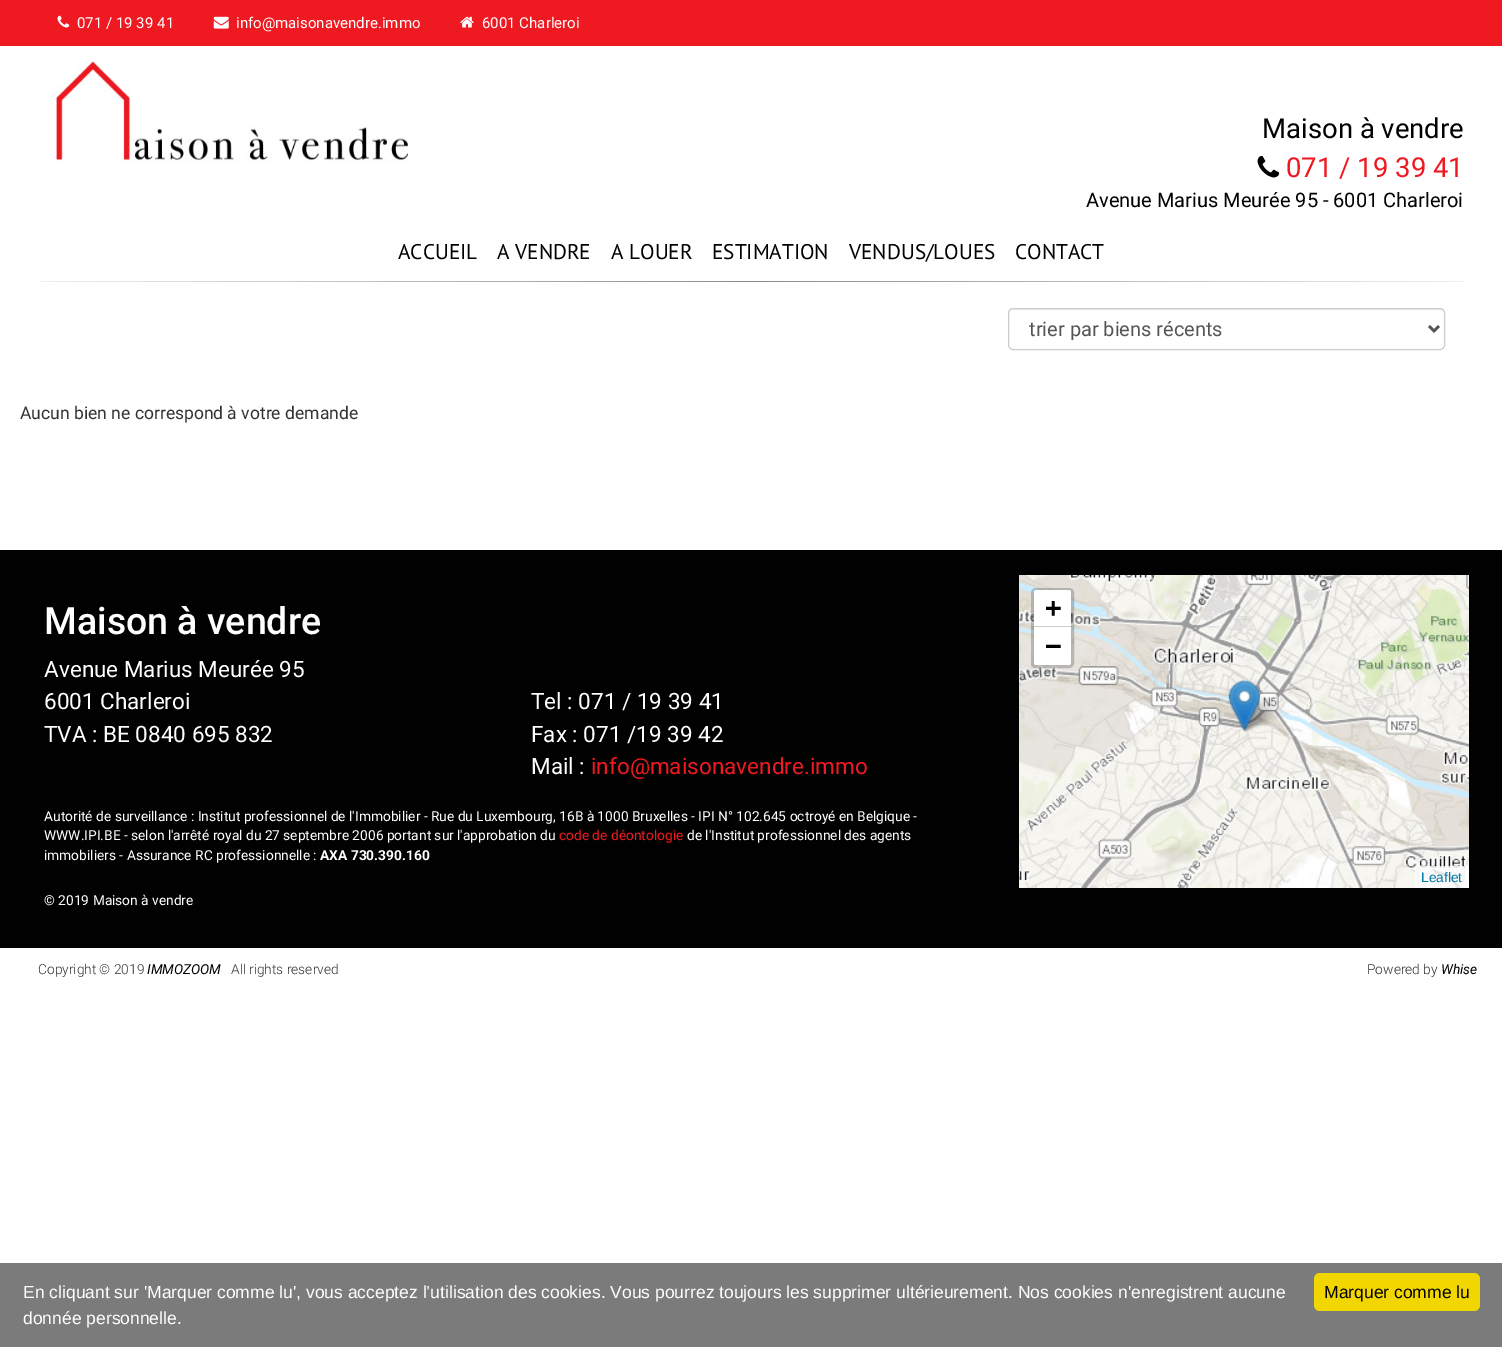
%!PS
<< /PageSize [1502 1347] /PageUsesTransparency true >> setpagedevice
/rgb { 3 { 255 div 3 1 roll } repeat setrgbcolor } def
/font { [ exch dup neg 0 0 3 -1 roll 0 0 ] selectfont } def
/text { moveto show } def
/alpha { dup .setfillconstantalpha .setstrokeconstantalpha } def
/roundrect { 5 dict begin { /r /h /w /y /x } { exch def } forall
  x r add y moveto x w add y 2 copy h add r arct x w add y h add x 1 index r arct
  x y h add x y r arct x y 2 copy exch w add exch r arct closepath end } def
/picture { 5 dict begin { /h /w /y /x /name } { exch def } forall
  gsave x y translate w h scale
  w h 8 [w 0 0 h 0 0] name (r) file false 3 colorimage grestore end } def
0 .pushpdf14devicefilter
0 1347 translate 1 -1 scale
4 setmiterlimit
255 255 255 rgb
0 0 1502 1347 rectfill
239 25 33 rgb
0 0 1502 46 rectfill
(img_01.rgb) 57 15 13 13 picture
(img_02.rgb) 213 16 16 13 picture
(img_03.rgb) 460 16 14 12 picture
(img_04.rgb) 52 60 356 103 picture
(img_05.rgb) 1257 155 23 23 picture
gsave 39 281 moveto 1425 0 rlineto 0 1 rlineto -1425 0 rlineto closepath clip newpath
<< /ShadingType 2 /ColorSpace /DeviceRGB /Coords [39 282 1464 282] /Extend [true true] /Function << /FunctionType 3 /Domain [0 1] /Functions [<< /FunctionType 2 /Domain [0 1] /C0 [0.941 0.941 0.941] /C1 [0.549 0.545 0.545] /N 1 >> << /FunctionType 2 /Domain [0 1] /C0 [0.549 0.545 0.545] /C1 [0.941 0.941 0.941] /N 1 >>] /Bounds [0.5] /Encode [0 1 0 1] >> >> shfill grestore
236 236 236 rgb
1012 310 moveto 428 0 rlineto 2 0 4 2 4 4 rcurveto 0 -3 -1 -5 -4 -5 rcurveto -427 0 rlineto -2 1 rlineto -1 1 rlineto -1 3 rlineto 0 -2 1 -4 3 -4 rcurveto closepath fill
204 204 204 rgb
1008.5 308.5 436 41 4.5 roundrect stroke
85 85 85 rgb
2.5 setlinewidth
1429 326 moveto 5 5 rlineto 5 -5 rlineto stroke
1 1 1 rgb
0 550 1502 398 rectfill
(img_06.rgb) 1019 575 181 170 picture
(img_07.rgb) 1200 575 269 170 picture
(img_08.rgb) 1019 744 181 144 picture
(img_09.rgb) 1200 744 269 144 picture
(img_11.rgb) 1240 696 37 36 picture
(img_10.rgb) 1228 679 32 53 picture
0.2 alpha
0 0 0 rgb
3 setlinewidth
1032.5 589.5 40 77 3.5 roundrect stroke
1 alpha
255 255 255 rgb
1036.5 590 moveto 32 0 rlineto 1.5 0 2.5 1 2.5 2.5 rcurveto 0 35.5 rlineto -37 0 rlineto 0 -35.5 rlineto 0 -1.5 1 -2.5 2.5 -2.5 rcurveto closepath fill
204 204 204 rgb
1034 626 37 1 rectfill
255 255 255 rgb
1034 628 moveto 37 0 rlineto 0 34.5 rlineto 0 1.5 -1 2.5 -2.5 2.5 rcurveto -32 0 rlineto -1.5 0 -2.5 -1 -2.5 -2.5 rcurveto closepath fill
0.7 alpha
1415 866 54 22 rectfill
1 alpha
123 123 123 rgb
0 1263 1502 84 rectfill
241 214 0 rgb
1314 1273 166 38 6 roundrect fill
/Roboto-Regular 15 font
255 255 255 rgb
(071 / 19 39 41) 77 28 text
(info@maisonavendre.immo) 236 28 text
(6001 Charleroi) 482 28 text
/Roboto-Regular 27.5 font
1 1 1 rgb
(Maison à vendre) 1262 138 text
239 25 33 rgb
(071 / 19 39 41) 1286 177 text
/Roboto-Regular 20 font
1 1 1 rgb
(Avenue Marius Meurée 95 - 6001 Charleroi) 1086 207 text
/PTSans-Regular 21.25 font
(ACCUEIL) 398 259 text
(A VENDRE) 497 259 text
(A LOUER) 611 259 text
(ESTIMATION) 712 259 text
(VENDUS/LOUES) 849 259 text
(CONTACT) 1015 259 text
/Roboto-Regular 20 font
85 85 85 rgb
(trier par biens récents) 1029 336 text
/Roboto-Regular 17.5 font
51 51 51 rgb
(Aucun bien ne correspond à votre demande) 20 419 text
/Roboto-Medium 37.5 font
255 255 255 rgb
(Maison à vendre) 44 634 text
/Roboto-Regular 22.5 font
(Avenue Marius Meurée 95) 44 677 text
(6001 Charleroi) 44 709 text
(TVA : BE 0840 695 832) 44 742 text
(Tel : 071 / 19 39 41) 531 709 text
(Fax : 071 /19 39 42) 531 742 text
(Mail :) 531 774 text
239 25 33 rgb
(info@maisonavendre.immo) 591 774 text
/Roboto-Regular 13.75 font
255 255 255 rgb
(Autorité de surveillance : Institut professionnel de l'Immobilier - Rue du Luxembourg, 16B à 1000 Bruxelles - IPI N° 102.645 octroyé en Belgique -) 44 821 text
(WWW.IPI.BE - selon l'arrêté royal du 27 septembre 2006 portant sur l'approbation du) 44 840 text
239 25 33 rgb
(code de déontologie) 559 840 text
255 255 255 rgb
(de l'Institut professionnel des agents) 687 840 text
(immobiliers - Assurance RC professionnelle :) 44 860 text
/Roboto-Bold 13.75 font
(AXA 730.390.160) 320 860 text
/Roboto-Regular 13.75 font
(© 2019 Maison à vendre) 44 905 text
/DejaVuSansMono-Bold 27.5 font
1 1 1 rgb
(+) 1045 617 text
(−) 1045 655 text
/LiberationSans-Regular 13.75 font
0 120 168 rgb
(Leaflet) 1421 882 text
/Roboto-Light 13.75 font
51 51 51 rgb
(Copyright © 2019) 38 974 text
/Roboto-Italic 13.75 font
1 1 1 rgb
(IMMOZOOM) 147 974 text
/Roboto-Light 13.75 font
51 51 51 rgb
(All rights reserved) 231 974 text
(Powered by) 1367 974 text
/Roboto-Italic 13.75 font
1 1 1 rgb
(Whise) 1441 974 text
/LiberationSans-Regular 17.5 font
255 255 255 rgb
(En cliquant sur 'Marquer comme lu', vous acceptez l’utilisation des cookies. Vous pourrez toujours les supprimer ultérieurement. Nos cookies n'enregistrent aucune) 23 1298 text
(donnée personnelle.) 23 1324 text
1 1 1 rgb
(Marquer comme lu) 1324 1298 text
.poppdf14devicefilter showpage
